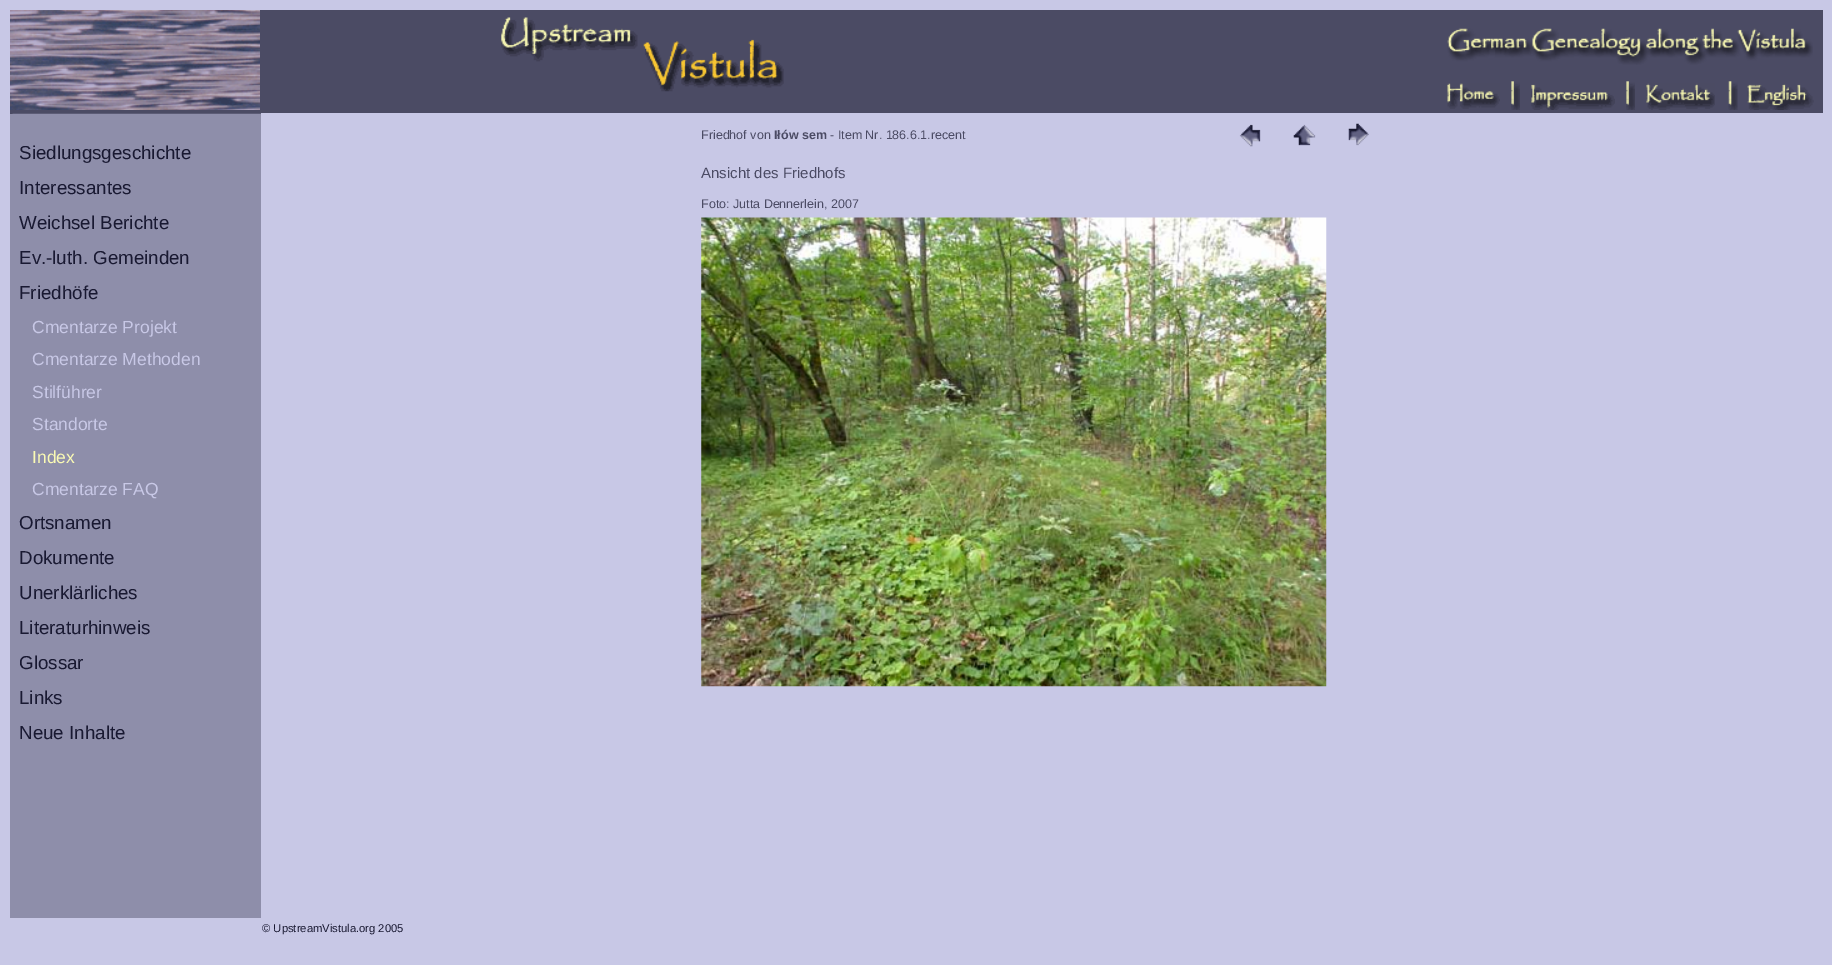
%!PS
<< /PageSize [1832 965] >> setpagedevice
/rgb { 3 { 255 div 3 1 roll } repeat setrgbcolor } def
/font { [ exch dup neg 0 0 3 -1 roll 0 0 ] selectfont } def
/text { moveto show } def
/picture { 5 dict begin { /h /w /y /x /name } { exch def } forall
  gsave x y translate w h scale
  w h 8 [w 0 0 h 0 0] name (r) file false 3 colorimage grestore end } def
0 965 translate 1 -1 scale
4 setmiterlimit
200 200 230 rgb
0 0 1832 965 rectfill
75 75 100 rgb
10 10 1813 104 rectfill
(img_01.rgb) 10 10 250 100 picture
(img_02.rgb) 501 17 283 75 picture
(img_03.rgb) 1447 28 366 37 picture
(img_04.rgb) 1447 83 53 26 picture
(img_05.rgb) 1511 81 9 29 picture
(img_06.rgb) 1531 84 84 26 picture
(img_07.rgb) 1626 81 9 29 picture
(img_08.rgb) 1646 83 69 27 picture
(img_09.rgb) 1728 81 10 29 picture
(img_10.rgb) 1747 84 67 26 picture
142 142 170 rgb
10 114 251 804 rectfill
(img_11.rgb) 12 113 249 1 picture
200 200 230 rgb
261 113 1562 1 rectfill
(img_12.rgb) 1239 124 22 23 picture
(img_13.rgb) 1293 124 23 22 picture
(img_14.rgb) 1348 123 21 23 picture
(img_15.rgb) 701 217 626 470 picture
/LiberationSans-Regular 18.75 font
25 25 50 rgb
(Siedlungsgeschichte) 19 159 text
(Interessantes) 19 194 text
(Weichsel Berichte) 19 229 text
(Ev.-luth. Gemeinden) 19 264 text
(Friedhöfe) 19 299 text
/LiberationSans-Regular 17.5 font
200 200 230 rgb
(Cmentarze Projekt) 32 333 text
(Cmentarze Methoden) 32 365 text
(Stilführer) 32 398 text
(Standorte) 32 430 text
250 250 180 rgb
(Index) 32 463 text
200 200 230 rgb
(Cmentarze FAQ) 32 495 text
/LiberationSans-Regular 18.75 font
25 25 50 rgb
(Ortsnamen) 19 529 text
(Dokumente) 19 564 text
(Unerklärliches) 19 599 text
(Literaturhinweis) 19 634 text
(Glossar) 19 669 text
(Links) 19 704 text
(Neue Inhalte) 19 739 text
/LiberationSans-Regular 12.5 font
75 75 100 rgb
(Friedhof von) 701 139 text
/LiberationSans-Bold 12.5 font
(Iłów sem) 774 139 text
/LiberationSans-Regular 12.5 font
(- Item Nr. 186.6.1.recent) 830 139 text
/LiberationSans-Regular 15 font
(Ansicht des Friedhofs) 701 178 text
/LiberationSans-Regular 12.5 font
(Foto: Jutta Dennerlein, 2007) 701 208 text
/LiberationSans-Regular 11.25 font
25 25 50 rgb
(© UpstreamVistula.org 2005) 262 932 text
showpage
